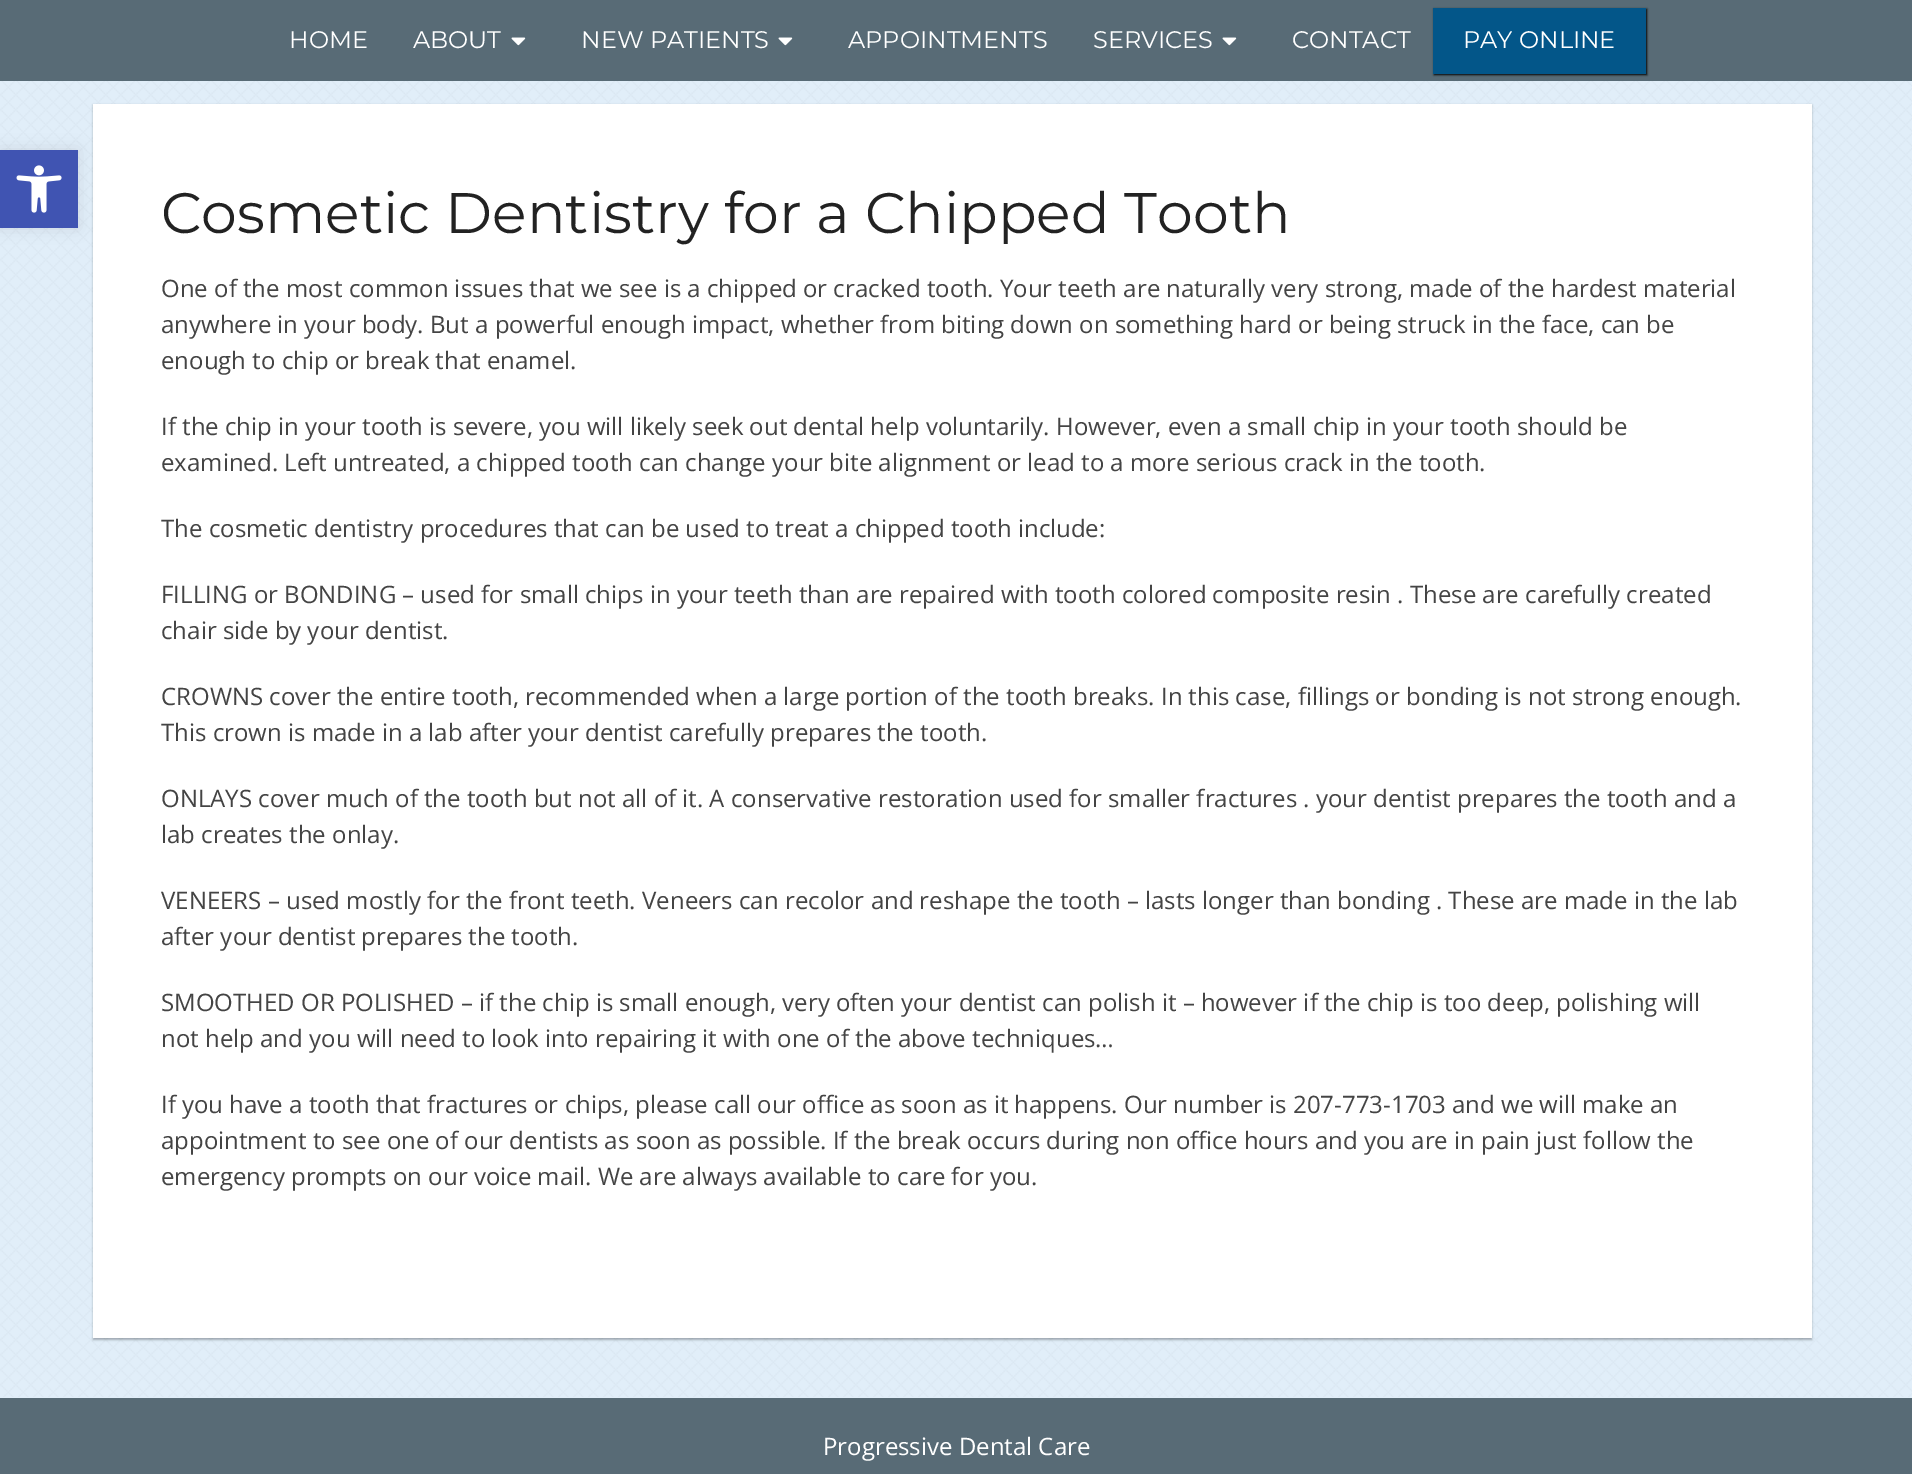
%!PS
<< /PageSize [1912 1474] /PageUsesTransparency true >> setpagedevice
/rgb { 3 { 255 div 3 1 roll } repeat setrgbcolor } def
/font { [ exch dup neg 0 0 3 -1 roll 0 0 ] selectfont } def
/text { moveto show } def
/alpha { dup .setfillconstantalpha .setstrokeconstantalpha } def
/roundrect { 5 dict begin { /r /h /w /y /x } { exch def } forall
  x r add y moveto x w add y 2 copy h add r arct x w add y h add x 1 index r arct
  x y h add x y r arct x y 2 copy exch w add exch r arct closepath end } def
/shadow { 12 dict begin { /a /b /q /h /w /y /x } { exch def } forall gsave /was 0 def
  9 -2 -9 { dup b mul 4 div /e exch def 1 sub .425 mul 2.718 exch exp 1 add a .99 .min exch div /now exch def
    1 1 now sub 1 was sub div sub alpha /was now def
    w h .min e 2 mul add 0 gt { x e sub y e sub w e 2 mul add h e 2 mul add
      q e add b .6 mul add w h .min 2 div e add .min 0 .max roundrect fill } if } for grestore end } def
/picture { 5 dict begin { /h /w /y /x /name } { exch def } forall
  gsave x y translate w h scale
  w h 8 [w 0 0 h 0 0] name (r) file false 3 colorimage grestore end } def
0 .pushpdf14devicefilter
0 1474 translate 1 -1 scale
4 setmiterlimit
225 238 249 rgb
0 0 1912 1474 rectfill
(img_01.rgb) 0 81 1912 1316 picture
0 0 0 rgb
93 105 1719 1235 0 1 0.28 shadow
255 255 255 rgb
93 104 1719 1234 rectfill
0 0 0 rgb
0 150 78 78 0 7.5 0.1 shadow
64 84 178 rgb
0 150 78 78 rectfill
(img_02.rgb) 16 165 46 48 picture
88 107 118 rgb
0 0 1912 81 rectfill
(img_03.rgb) 511 37 15 9 picture
(img_03.rgb) 778 37 15 9 picture
(img_03.rgb) 1222 37 15 9 picture
0 0 0 rgb
1434 9 213 66 0 1 1 shadow
3 86 137 rgb
1433 8 213 66 rectfill
88 107 118 rgb
0 1398 1912 76 rectfill
/Montserrat-Regular 24 font
255 255 255 rgb
(HOME) 289 48 text
(ABOUT) 413 48 text
(NEW PATIENTS) 581 48 text
(APPOINTMENTS) 848 48 text
(SERVICES) 1093 48 text
(CONTACT) 1292 48 text
(PAY ONLINE) 1463 48 text
/Montserrat-Regular 57 font
34 34 34 rgb
(Cosmetic Dentistry for a Chipped Tooth) 161 233 text
/OpenSans-Regular 24 font
68 68 68 rgb
(One of the most common issues that we see is a chipped or cracked tooth. Your teeth are naturally very strong, made of the hardest material) 161 297 text
(anywhere in your body. But a powerful enough impact, whether from biting down on something hard or being struck in the face, can be) 161 333 text
(enough to chip or break that enamel.) 161 369 text
(If the chip in your tooth is severe, you will likely seek out dental help voluntarily. However, even a small chip in your tooth should be) 161 435 text
(examined. Left untreated, a chipped tooth can change your bite alignment or lead to a more serious crack in the tooth.) 161 471 text
(The cosmetic dentistry procedures that can be used to treat a chipped tooth include:) 161 537 text
(FILLING or BONDING – used for small chips in your teeth than are repaired with tooth colored composite resin . These are carefully created) 161 603 text
(chair side by your dentist.) 161 639 text
(CROWNS cover the entire tooth, recommended when a large portion of the tooth breaks. In this case, fillings or bonding is not strong enough.) 161 705 text
(This crown is made in a lab after your dentist carefully prepares the tooth.) 161 741 text
(ONLAYS cover much of the tooth but not all of it. A conservative restoration used for smaller fractures . your dentist prepares the tooth and a) 161 807 text
(lab creates the onlay.) 161 843 text
(VENEERS – used mostly for the front teeth. Veneers can recolor and reshape the tooth – lasts longer than bonding . These are made in the lab) 161 909 text
(after your dentist prepares the tooth.) 161 945 text
(SMOOTHED OR POLISHED – if the chip is small enough, very often your dentist can polish it – however if the chip is too deep, polishing will) 161 1011 text
(not help and you will need to look into repairing it with one of the above techniques…) 161 1047 text
(If you have a tooth that fractures or chips, please call our office as soon as it happens. Our number is 207-773-1703 and we will make an) 161 1113 text
(appointment to see one of our dentists as soon as possible. If the break occurs during non office hours and you are in pain just follow the) 161 1149 text
(emergency prompts on our voice mail. We are always available to care for you.) 161 1185 text
255 255 255 rgb
(Progressive Dental Care) 823 1455 text
.poppdf14devicefilter showpage
